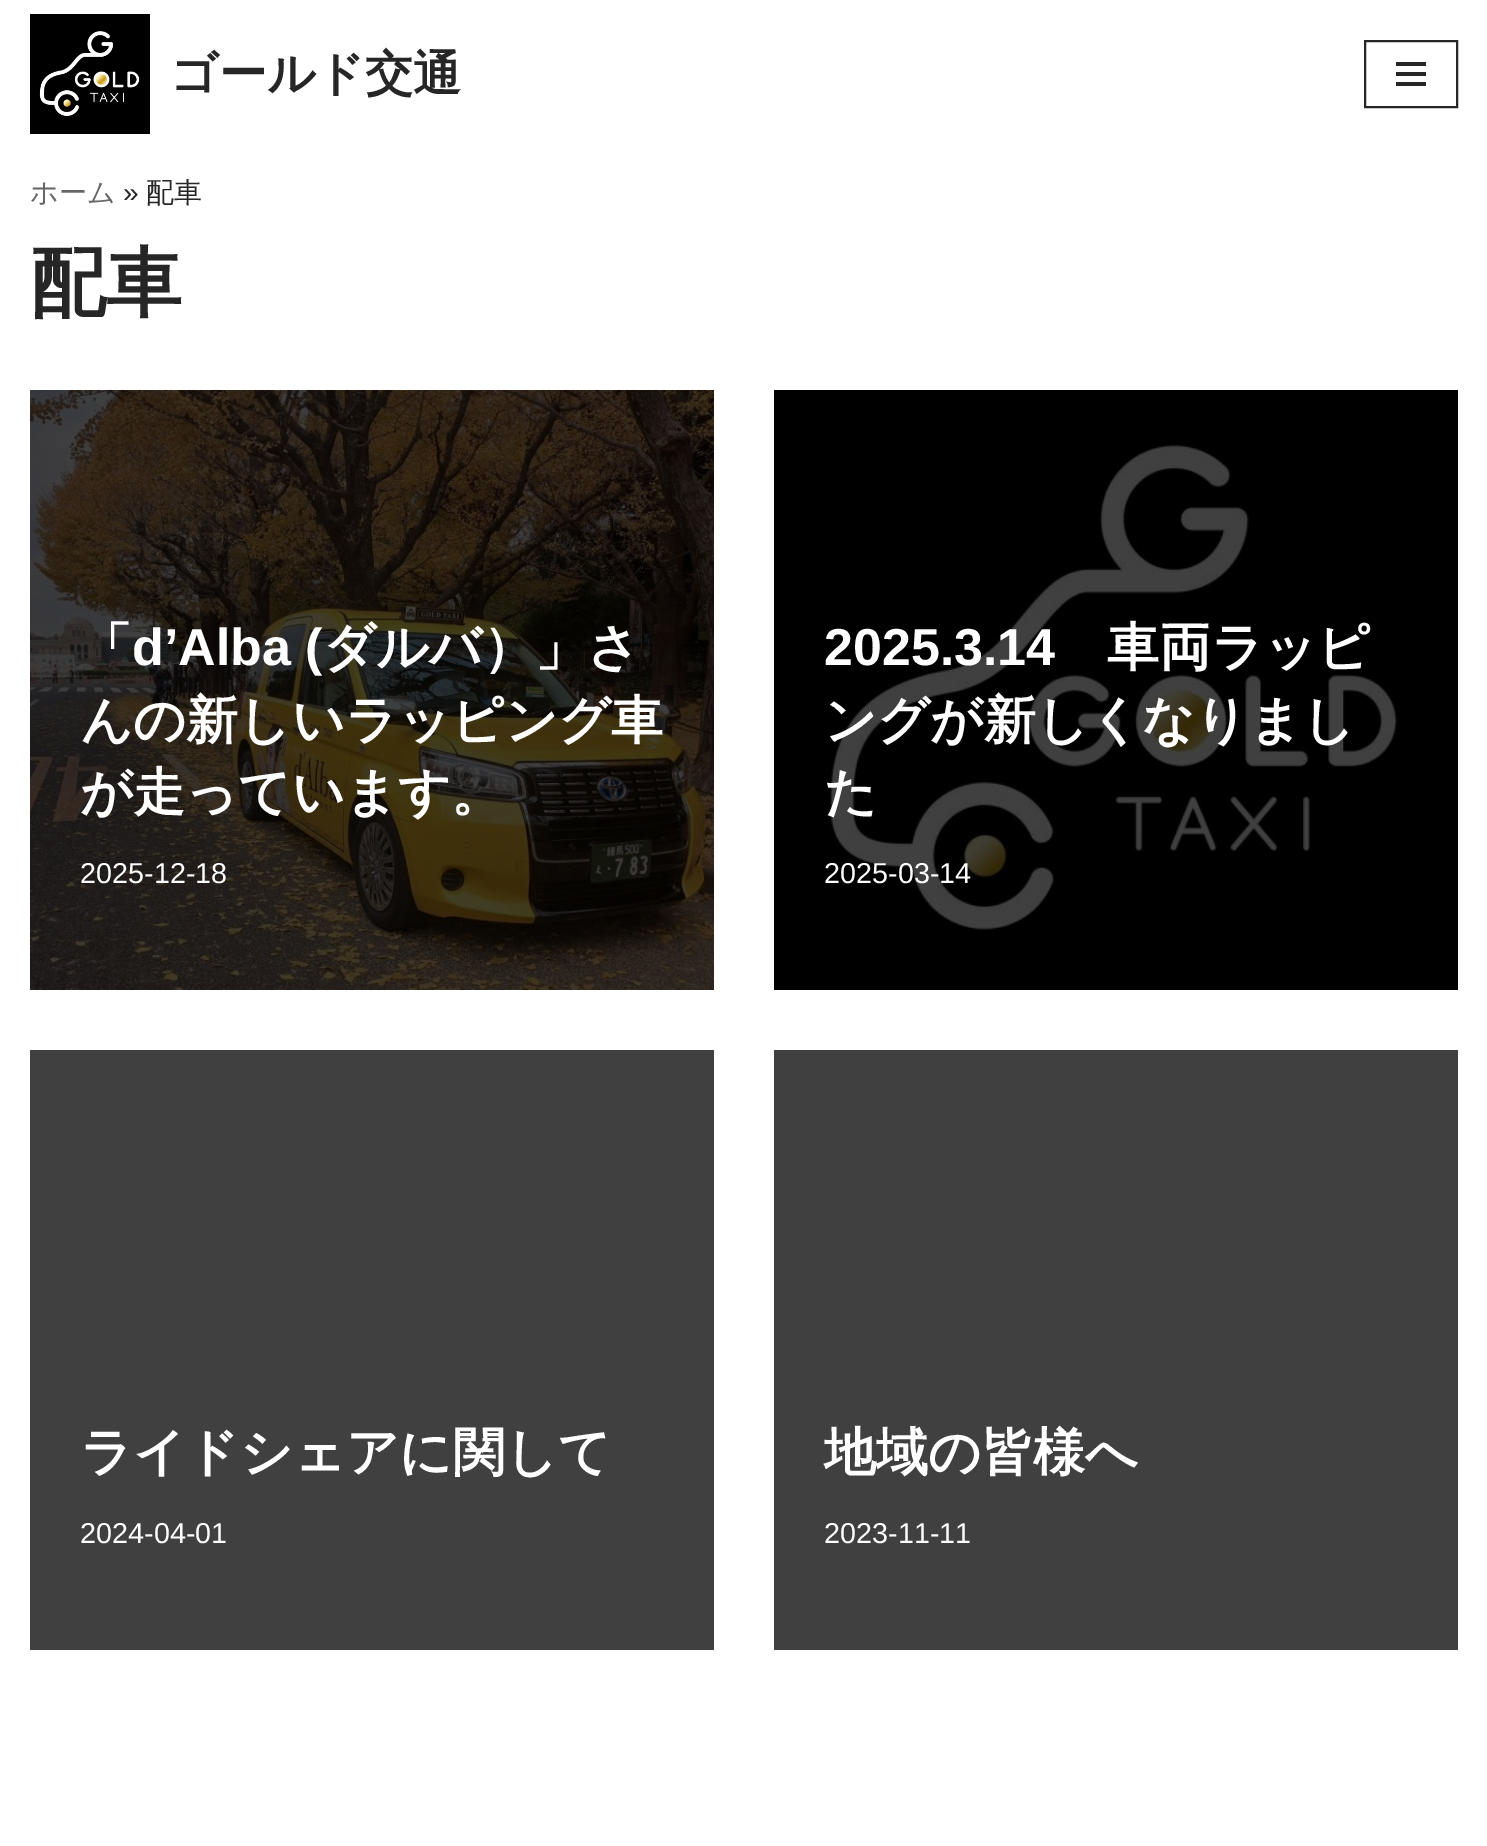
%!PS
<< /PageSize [1487 1846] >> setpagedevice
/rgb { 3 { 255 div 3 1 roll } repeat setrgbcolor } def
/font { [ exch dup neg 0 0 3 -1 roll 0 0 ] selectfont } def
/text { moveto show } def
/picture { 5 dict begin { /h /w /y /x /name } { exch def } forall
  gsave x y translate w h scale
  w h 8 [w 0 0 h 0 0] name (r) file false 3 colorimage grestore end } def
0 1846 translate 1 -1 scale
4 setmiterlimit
255 255 255 rgb
0 0 1487 1846 rectfill
(img_01.rgb) 30 14 120 120 picture
39 38 38 rgb
2 setlinewidth
1365 41 92 66 rectstroke
1396 62 30 4 rectfill
1396 72 30 4 rectfill
1396 82 30 4 rectfill
(img_02.rgb) 30 390 684 600 picture
(img_03.rgb) 774 390 684 600 picture
64 64 64 rgb
30 1050 684 600 rectfill
774 1050 684 600 rectfill
/WenQuanYiZenHei-Bold 48 font
39 38 38 rgb
(ゴールド交通) 170 90 text
/WenQuanYiZenHei-Medium 28 font
103 103 103 rgb
(ホーム) 30 202 text
/LiberationSans-Regular 28 font
39 38 38 rgb
(») 123 202 text
/WenQuanYiZenHei-Medium 28 font
(配車) 146 202 text
/WenQuanYiZenHei-Bold 76 font
(配車) 30 309 text
/WenQuanYiZenHei-Bold 52 font
255 255 255 rgb
(「) 80 665 text
/LiberationSans-Bold 52 font
(d’Alba \() 132 665 text
/WenQuanYiZenHei-Bold 52 font
(ダルバ）」さ) 323 665 text
(んの新しいラッピング車) 80 738 text
(が走っています。) 80 810 text
/LiberationSans-Regular 28.75 font
(2025-12-18) 80 883 text
/LiberationSans-Bold 52 font
(2025.3.14) 824 665 text
/WenQuanYiZenHei-Bold 52 font
(車両ラッピ) 1107 665 text
(ングが新しくなりまし) 824 738 text
(た) 824 810 text
/LiberationSans-Regular 28.75 font
(2025-03-14) 824 883 text
/WenQuanYiZenHei-Bold 52 font
(ライドシェアに関して) 80 1470 text
/LiberationSans-Regular 28.75 font
(2024-04-01) 80 1543 text
/WenQuanYiZenHei-Bold 52 font
(地域の皆様へ) 824 1470 text
/LiberationSans-Regular 28.75 font
(2023-11-11) 824 1543 text
showpage
